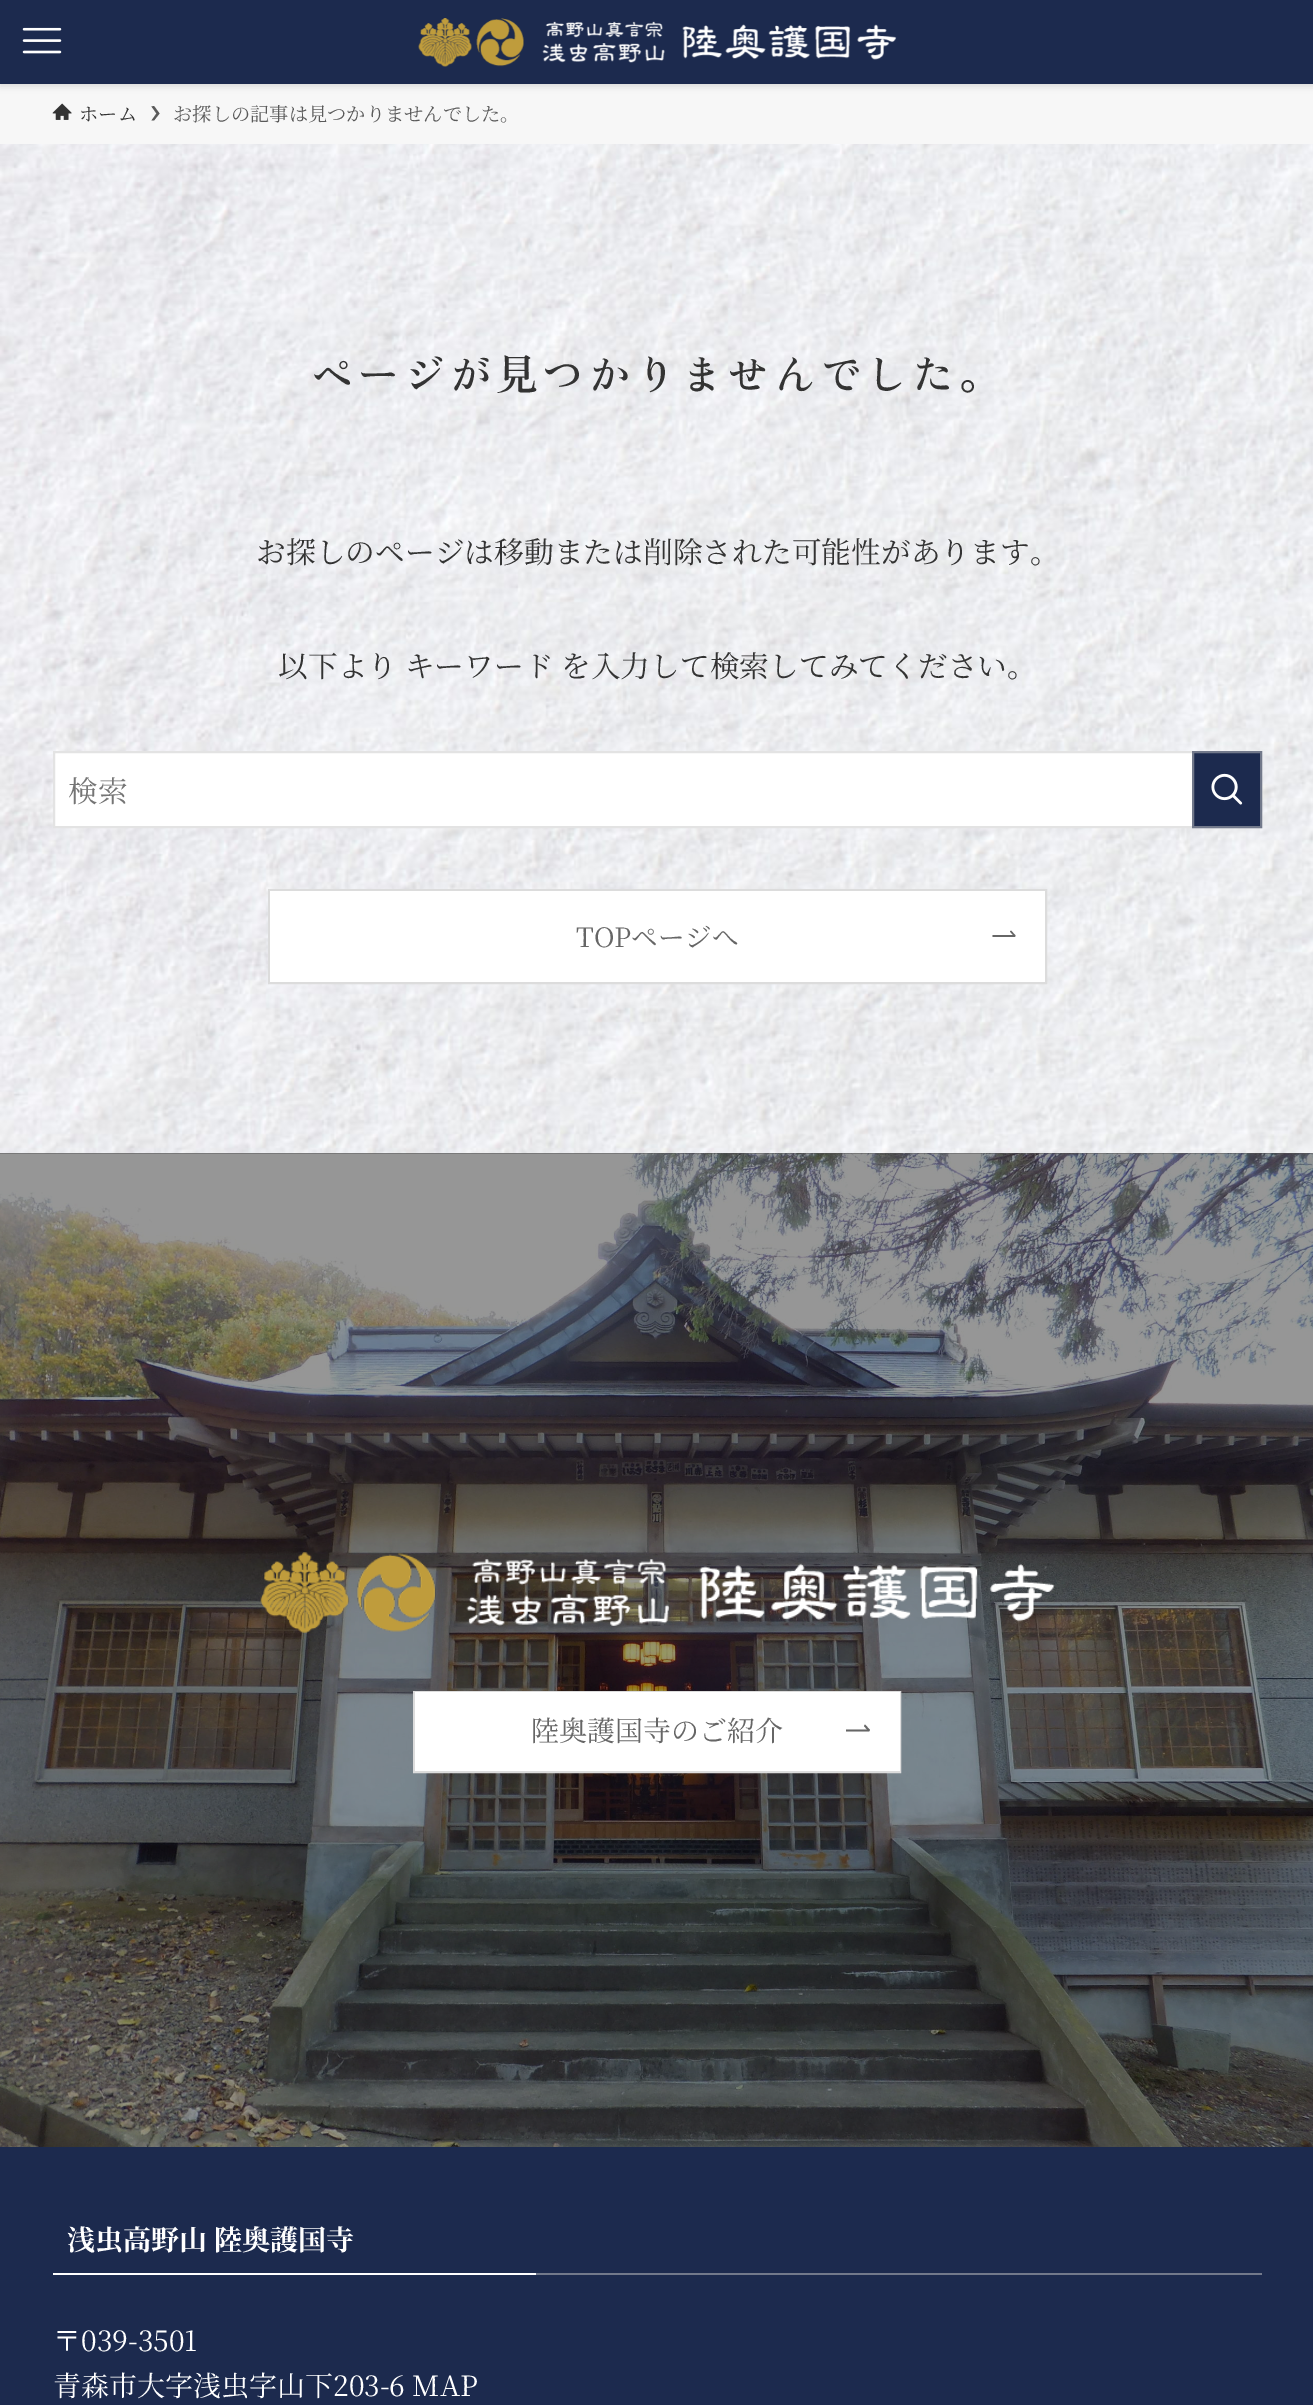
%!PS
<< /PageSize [1313 2405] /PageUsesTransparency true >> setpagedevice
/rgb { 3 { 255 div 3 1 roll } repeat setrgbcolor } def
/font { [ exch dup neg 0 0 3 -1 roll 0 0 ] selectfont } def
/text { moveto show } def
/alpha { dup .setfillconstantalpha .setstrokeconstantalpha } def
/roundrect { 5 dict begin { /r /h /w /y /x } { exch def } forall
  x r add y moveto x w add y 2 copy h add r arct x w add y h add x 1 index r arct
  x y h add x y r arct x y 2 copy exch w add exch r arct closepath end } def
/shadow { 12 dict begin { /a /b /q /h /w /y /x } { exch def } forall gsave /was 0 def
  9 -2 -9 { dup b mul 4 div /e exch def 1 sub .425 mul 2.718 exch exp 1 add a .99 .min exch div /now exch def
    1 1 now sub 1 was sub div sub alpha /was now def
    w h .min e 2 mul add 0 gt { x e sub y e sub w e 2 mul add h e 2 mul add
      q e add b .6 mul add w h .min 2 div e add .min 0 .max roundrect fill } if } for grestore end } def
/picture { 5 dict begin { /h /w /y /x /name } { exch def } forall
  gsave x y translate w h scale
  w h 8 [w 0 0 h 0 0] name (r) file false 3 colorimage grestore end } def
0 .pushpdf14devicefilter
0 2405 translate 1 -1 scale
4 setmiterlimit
255 255 255 rgb
0 0 1313 2405 rectfill
(img_01.rgb) 0 144 1313 1010 picture
247 247 247 rgb
0 84 1313 60 rectfill
0 0 0 rgb
0 2 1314 84 0 3.5 0.12 shadow
28 42 78 rgb
0 0 1313 84 rectfill
(img_02.rgb) 22 27 40 27 picture
(img_03.rgb) 418 18 479 49 picture
(img_04.rgb) 52 103 20 17 picture
90 90 90 rgb
154 106 moveto -2.5 0.5 rlineto 5 7 rlineto -5 7 rlineto 2.5 0 rlineto 5.5 -7 rlineto closepath fill
255 255 255 rgb
55 753 1137 73 rectfill
227 227 227 rgb
2 setlinewidth
54 752 1207 75 rectstroke
28 42 78 rgb
1193 752 moveto 68 0 rlineto 0 75 rlineto -68 0 rlineto closepath gsave fill grestore
114 121 139 rgb
stroke
(img_05.rgb) 1211 773 32 32 picture
220 220 220 rgb
269 890 777 93 rectstroke
255 255 255 rgb
270 891 775 91 rectfill
102 102 102 rgb
1015 937 moveto -22.5 0 rlineto 0 -2 rlineto 20.5 0 rlineto -3 -3.5 rlineto 1 -1 rlineto 4.5 5 rlineto closepath fill
0.42 alpha
5 5 5 rgb
0 1153 1313 1 rectfill
1 alpha
(img_06.rgb) 0 1153 1313 994 picture
0.42 alpha
0 1153 1313 994 rectfill
1 alpha
(img_07.rgb) 260 1552 795 81 picture
220 220 220 rgb
414 1692 486 80 rectstroke
255 255 255 rgb
415 1692 485 79 rectfill
102 102 102 rgb
869 1731.5 moveto -23 0 rlineto 0 -2 rlineto 21 0 rlineto -3 -3.5 rlineto 1 -1.5 rlineto 5 5.5 rlineto closepath fill
28 42 78 rgb
0 2147 1313 258 rectfill
255 255 255 rgb
53 2273 483 2 rectfill
114 121 139 rgb
536 2273 726 2 rectfill
/NotoSerifJP-Regular 19.25 font
51 51 51 rgb
(ホーム) 79 121 text
90 90 90 rgb
(お探しの記事は見つかりませんでした。) 173 121 text
/ZenOldMincho-SemiBold 42 font
51 51 51 rgb
311 390 moveto 4.25 0 (ページが見つかりませんでした。) ashow
/NotoSerifJP-Regular 29.75 font
(お探しのページは移動または削除された可能性があります。) 256 563 text
(以下より キーワード を入力して検索してみてください。) 278 677 text
117 117 117 rgb
(検索) 68 802 text
/NotoSerifJP-Regular 26.75 font
102 102 102 rgb
(TOPページへ) 576 947 text
/NotoSerifJP-Regular 28 font
(陸奥護国寺のご紹介) 531 1741 text
/NotoSerifJP-Bold 28 font
255 255 255 rgb
(浅虫高野山 陸奥護国寺) 67 2250 text
/NotoSerifJP-Regular 28 font
(〒039-3501) 53 2351 text
(青森市大字浅虫字山下203-6 MAP) 53 2396 text
.poppdf14devicefilter showpage
